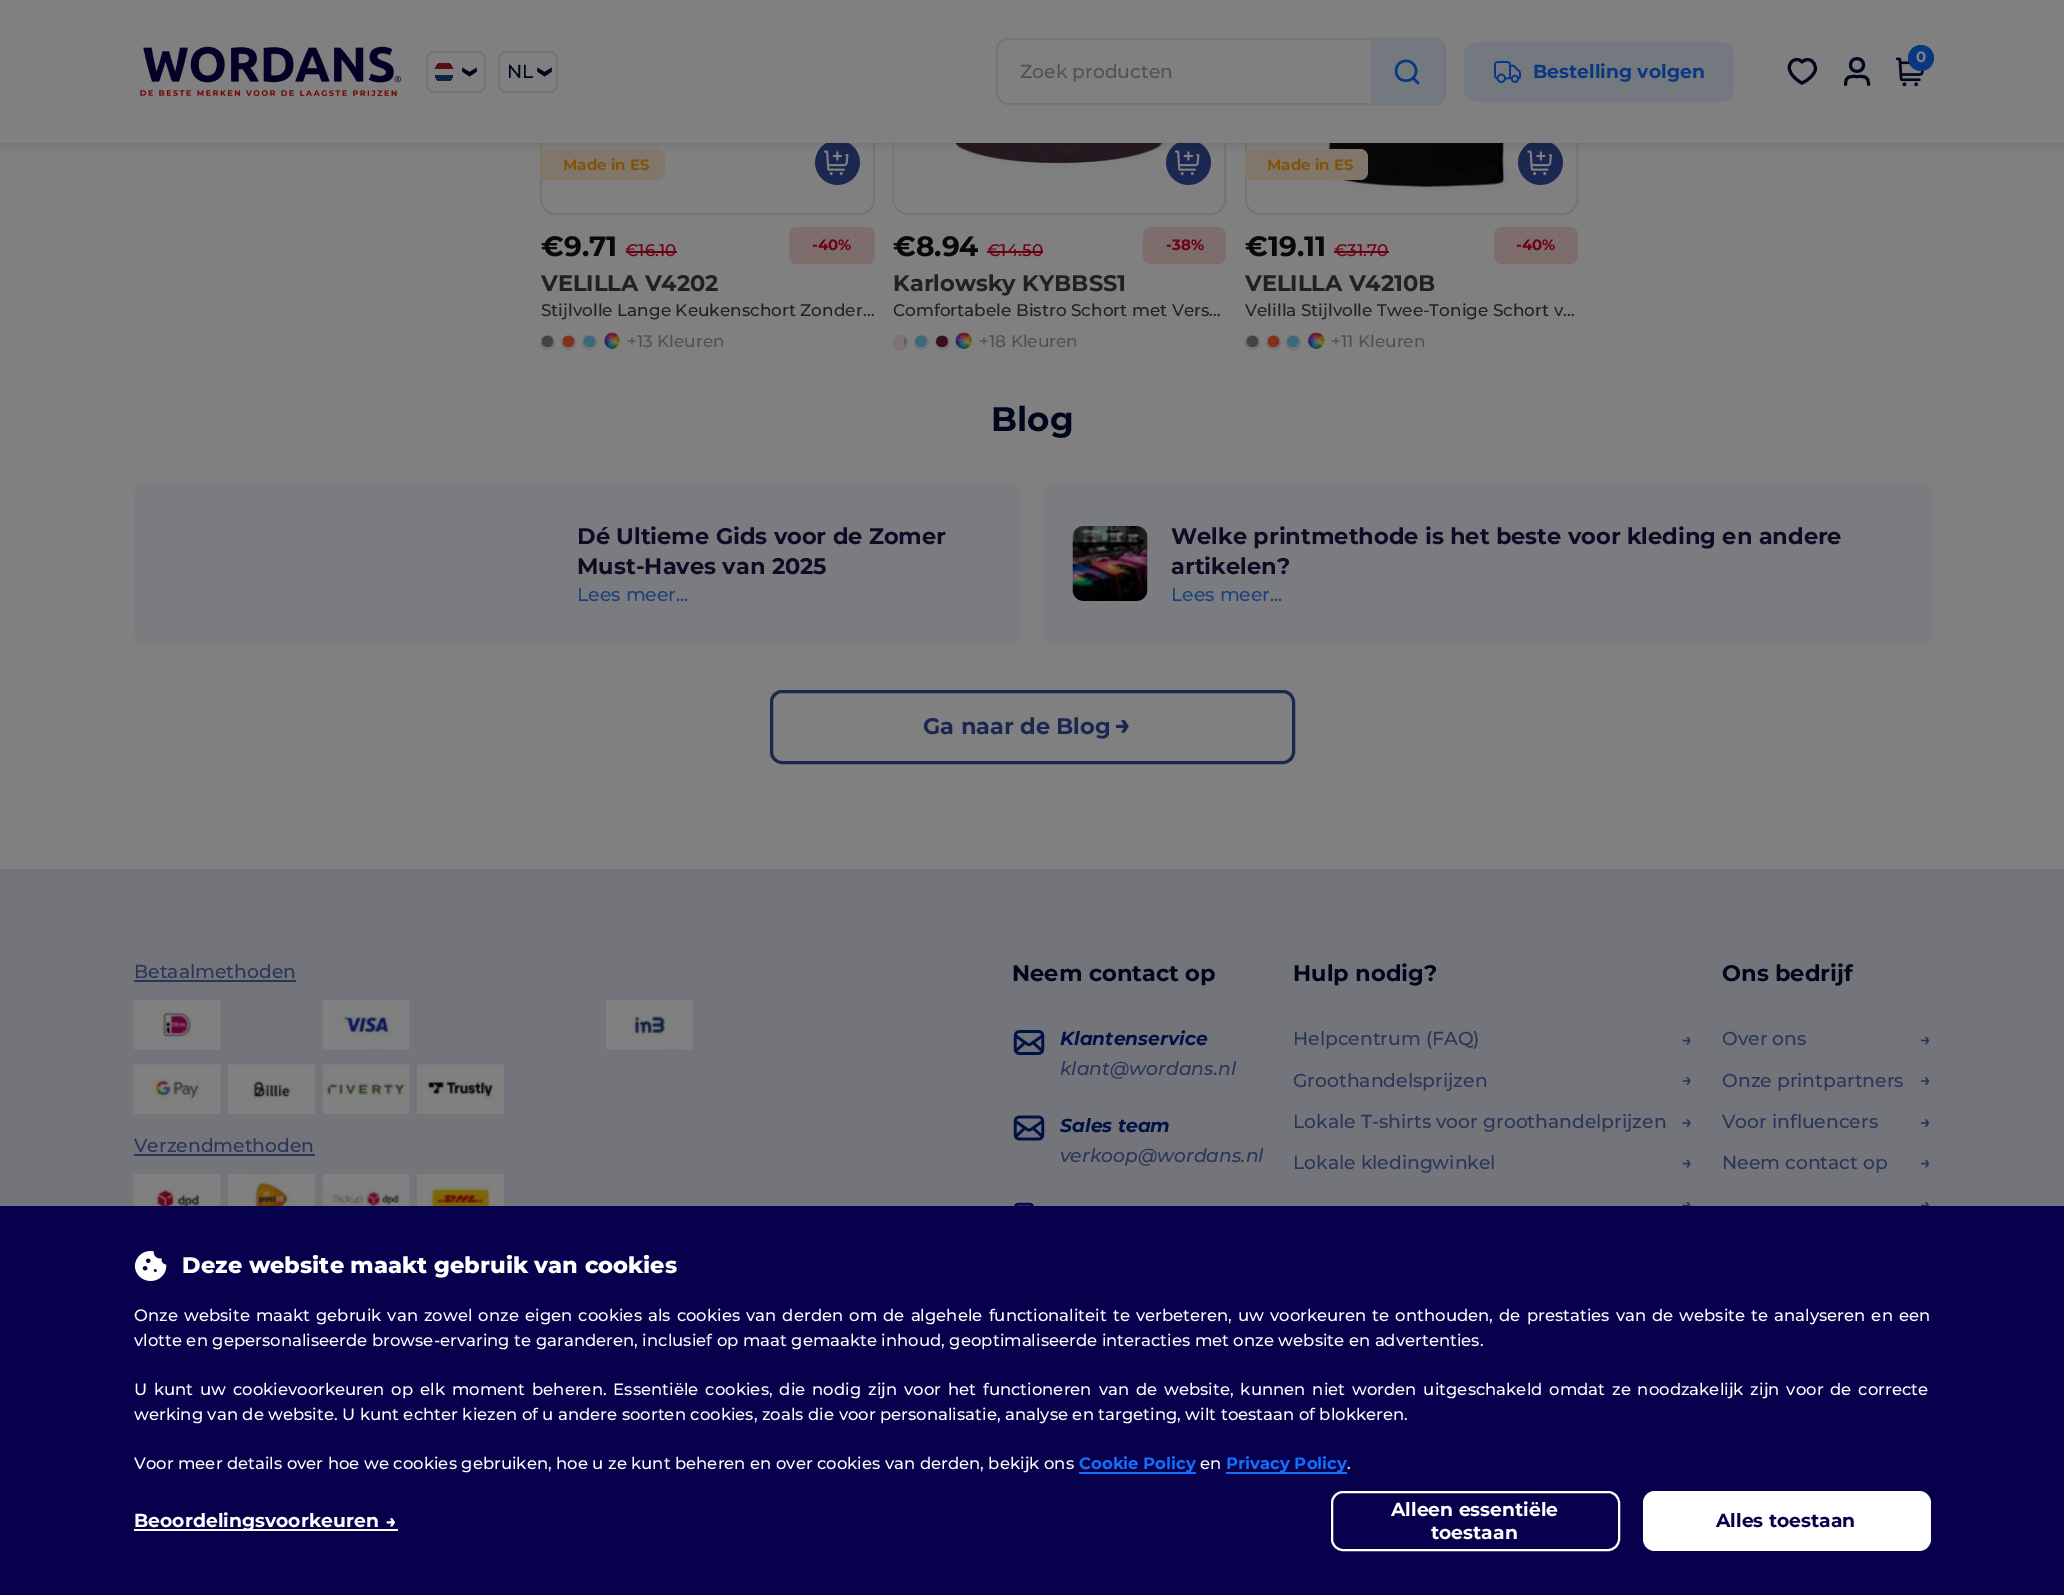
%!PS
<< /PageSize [2064 1595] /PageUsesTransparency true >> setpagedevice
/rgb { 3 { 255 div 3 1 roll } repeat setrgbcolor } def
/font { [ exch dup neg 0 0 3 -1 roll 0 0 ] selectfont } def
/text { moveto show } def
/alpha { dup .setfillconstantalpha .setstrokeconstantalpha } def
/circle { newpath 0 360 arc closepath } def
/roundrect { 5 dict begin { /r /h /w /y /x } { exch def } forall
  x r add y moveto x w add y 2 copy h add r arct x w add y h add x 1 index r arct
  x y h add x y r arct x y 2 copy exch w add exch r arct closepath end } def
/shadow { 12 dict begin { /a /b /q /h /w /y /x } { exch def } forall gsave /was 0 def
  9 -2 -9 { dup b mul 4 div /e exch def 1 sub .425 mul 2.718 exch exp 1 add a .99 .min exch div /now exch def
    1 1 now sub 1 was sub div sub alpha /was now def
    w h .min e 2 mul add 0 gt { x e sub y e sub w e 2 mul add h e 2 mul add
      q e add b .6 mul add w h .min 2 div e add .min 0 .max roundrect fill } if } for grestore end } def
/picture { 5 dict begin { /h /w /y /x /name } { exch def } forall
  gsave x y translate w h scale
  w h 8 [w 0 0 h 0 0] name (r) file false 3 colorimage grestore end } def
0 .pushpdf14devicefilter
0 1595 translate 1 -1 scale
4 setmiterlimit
128 128 128 rgb
0 0 2064 1595 rectfill
115 116 118 rgb
2 setlinewidth
541 -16 333 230 14 roundrect stroke
128 119 106 rgb
540 149 moveto 117 0 rlineto 4.5 0 8 3.5 8 8 rcurveto 0 15 rlineto 0 4.5 -3.5 8 -8 8 rcurveto -117 0 rlineto closepath fill
(img_05.rgb) 815 143 45 42 picture
115 116 118 rgb
894 -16 331 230 14 roundrect stroke
(img_10.rgb) 894 143 330 69 picture
(img_11.rgb) 1166 143 45 42 picture
1246 -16 331 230 14 roundrect stroke
(img_16.rgb) 1246 143 331 63 picture
128 119 106 rgb
1245 149 moveto 115 0 rlineto 4.5 0 8 3.5 8 8 rcurveto 0 15 rlineto 0 4.5 -3.5 8 -8 8 rcurveto -115 0 rlineto closepath fill
(img_17.rgb) 1518 143 45 42 picture
0 0 0 rgb
0 3 2064 143 0 3 0.1 shadow
128 128 128 rgb
0 0 2064 143 rectfill
(img_01.rgb) 140 46 261 51 picture
115 116 118 rgb
427 52 58 40 7 roundrect stroke
gsave
435 62 18 21 9 roundrect clip newpath
17 35 70 rgb
435 63 18 18 rectfill
128 128 128 rgb
435 63 18 12 rectfill
87 14 20 rgb
435 63 18 6 rectfill
grestore
(img_02.rgb) 462 67 15 10 picture
499 52 58 40 7 roundrect stroke
(img_02.rgb) 537 67 15 10 picture
0 7 29 rgb
3 setlinewidth
1 setlinecap
1 setlinejoin
1807.5 59.5 moveto 6 0 9 6.5 7.5 11.5 rcurveto -1.5 4 -5 7 -8.5 9.5 rcurveto -4.5 2.5 rlineto -1 0 -5.5 -3.5 -6.5 -4.5 rcurveto -14.5 -12.5 0 -24.5 6.5 -16.5 rcurveto 1.5 -1 3 -2.5 5.5 -2.5 rcurveto closepath stroke
1868.5 84.5 moveto 0 -9 -4.5 -8 -11.5 -8 rcurveto -7 0 -11.5 -1 -11.5 8 rcurveto 1863.5 65 moveto 0 8.5 -13 8.5 -13 0 rcurveto 0 -8.5 13 -8.5 13 0 rcurveto closepath stroke
(img_03.rgb) 1895 57 30 30 picture
9 56 128 rgb
1921 58 13 circle fill
115 117 122 rgb
2 setlinewidth
0 setlinecap
0 setlinejoin
997 39 448 65 11 roundrect stroke
116 121 128 rgb
1371 39 moveto 63 0 rlineto 6 0 11 5 11 11 rcurveto 0 43 rlineto 0 6 -5 11 -11 11 rcurveto -63 0 rlineto closepath fill
115 117 122 rgb
1371 38 moveto 64 0 rlineto 6 0 11 5 11 11 rcurveto 0 45 rlineto 0 6 -5 11 -11 11 rcurveto -64 0 rlineto closepath 1371 39 moveto 64 0 rlineto 5 0 9 4 9 10 rcurveto 0 45 rlineto 0 5 -4 10 -9 10 rcurveto -64 0 rlineto closepath eofill
9 56 128 rgb
2.5 setlinewidth
1 setlinecap
1 setlinejoin
1418 83 moveto -5 -5 rlineto 1416 71 moveto 0 13 -20 13 -20 0 rcurveto 0 -13.5 20 -13.5 20 0 rcurveto closepath stroke
116 121 128 rgb
1464 42 270 60 12 roundrect fill
(img_04.rgb) 1494 61 27 22 picture
108 0 20 rgb
626 251 51 2 rectfill
126 109 109 rgb
789 227 86 37 8 roundrect fill
115 116 118 rgb
2 setlinewidth
0 setlinecap
0 setlinejoin
547.5 342.5 6.5 circle stroke
(img_06.rgb) 604 332 16 17 picture
(img_07.rgb) 541 335 13 13 picture
568.5 342.5 6.5 circle stroke
(img_08.rgb) 562 335 13 13 picture
589.5 342.5 6.5 circle stroke
(img_09.rgb) 583 335 13 13 picture
108 0 20 rgb
987 251 56 2 rectfill
126 109 109 rgb
1143 227 83 37 8 roundrect fill
115 116 118 rgb
900.5 342.5 6.5 circle stroke
(img_12.rgb) 955 332 17 17 picture
(img_13.rgb) 894 335 12 13 picture
921.5 342.5 6.5 circle stroke
(img_14.rgb) 915 335 12 13 picture
942.5 342.5 6.5 circle stroke
(img_15.rgb) 936 335 12 13 picture
108 0 20 rgb
1334 251 55 2 rectfill
126 109 109 rgb
1494 227 84 37 8 roundrect fill
115 116 118 rgb
1252.5 342.5 6.5 circle stroke
(img_18.rgb) 1308 332 17 17 picture
(img_07.rgb) 1246 335 13 13 picture
1273.5 342.5 6.5 circle stroke
(img_19.rgb) 1267 335 13 13 picture
1293.5 342.5 6.5 circle stroke
(img_14.rgb) 1287 335 12 13 picture
122 124 127 rgb
134 483 886 162 12 roundrect fill
1043 483 888 162 12 roundrect fill
(img_20.rgb) 1072 526 76 75 picture
26 39 81 rgb
3 setlinewidth
771.5 691.5 522 71 10.5 roundrect stroke
(img_21.rgb) 1116 720 13 13 picture
115 117 122 rgb
0 869 2064 337 rectfill
42 54 89 rgb
134 980 162 2 rectfill
(img_22.rgb) 133 1000 88 50 picture
(img_23.rgb) 322 1000 88 50 picture
(img_24.rgb) 606 1000 87 50 picture
(img_25.rgb) 133 1064 88 50 picture
(img_26.rgb) 228 1064 87 50 picture
(img_27.rgb) 322 1064 88 50 picture
(img_28.rgb) 417 1064 87 50 picture
134 1154 181 2 rectfill
(img_29.rgb) 133 1174 88 32 picture
(img_30.rgb) 228 1174 87 32 picture
(img_31.rgb) 322 1174 88 32 picture
(img_32.rgb) 417 1174 87 32 picture
(img_33.rgb) 1013 1030 32 25 picture
(img_34.rgb) 1013 1115 32 26 picture
(img_35.rgb) 1014 1202 20 4 picture
(img_36.rgb) 1682 1037 9 8 picture
(img_37.rgb) 1682 1077 9 8 picture
(img_37.rgb) 1682 1119 9 8 picture
(img_36.rgb) 1682 1160 9 8 picture
(img_38.rgb) 1682 1202 9 4 picture
(img_39.rgb) 1921 1037 9 8 picture
(img_40.rgb) 1921 1077 9 8 picture
(img_40.rgb) 1921 1119 9 8 picture
(img_39.rgb) 1921 1160 9 8 picture
(img_41.rgb) 1921 1202 9 4 picture
7 1 77 rgb
0 1206 2064 389 rectfill
(img_42.rgb) 134 1251 33 30 picture
17 112 255 rgb
1079 1472 117 2 rectfill
1226 1472 121 2 rectfill
(img_43.rgb) 386 1518 9 9 picture
255 255 255 rgb
134 1529 264 2 rectfill
2 setlinewidth
1332 1492 287 58 11 roundrect stroke
1643 1491 288 60 12 roundrect fill
/Montserrat-Medium 18.75 font
0 7 29 rgb
(NL) 507 78 text
/Montserrat-Bold 15 font
128 128 128 rgb
(0) 1916 62 text
/Montserrat-Medium 18.75 font
78 82 88 rgb
(Zoek producten) 1020 78 text
/Montserrat-Bold 18.75 font
9 56 128 rgb
(Bestelling volgen) 1533 78 text
/Montserrat-Bold 15 font
128 83 14 rgb
(Made in ES) 563 170 text
/Montserrat-Bold 28 font
9 9 9 rgb
(€9.71) 541 256 text
/Montserrat-Medium 16.9 font
108 0 20 rgb
(€16.10) 625 256 text
/Montserrat-Bold 15 font
(-40%) 812 250 text
/Montserrat-Bold 22.5 font
33 33 33 rgb
(VELILLA V4202) 541 291 text
/Montserrat-Medium 16.9 font
(Stijlvolle Lange Keukenschort Zonder…) 541 316 text
78 82 88 rgb
(+13 Kleuren) 627 347 text
/Montserrat-Bold 28 font
9 9 9 rgb
(€8.94) 893 256 text
/Montserrat-Medium 16.9 font
108 0 20 rgb
(€14.50) 987 256 text
/Montserrat-Bold 15 font
(-38%) 1166 250 text
/Montserrat-Bold 22.5 font
33 33 33 rgb
(Karlowsky KYBBSS1) 893 291 text
/Montserrat-Medium 16.9 font
(Comfortabele Bistro Schort met Vers…) 893 316 text
78 82 88 rgb
(+18 Kleuren) 979 347 text
/Montserrat-Bold 15 font
128 83 14 rgb
(Made in ES) 1267 170 text
/Montserrat-Bold 28 font
9 9 9 rgb
(€19.11) 1245 256 text
/Montserrat-Medium 16.9 font
108 0 20 rgb
(€31.70) 1334 256 text
/Montserrat-Bold 15 font
(-40%) 1516 250 text
/Montserrat-Bold 22.5 font
33 33 33 rgb
(VELILLA V4210B) 1245 291 text
/Montserrat-Medium 16.9 font
(Velilla Stijlvolle Twee-Tonige Schort v…) 1245 316 text
78 82 88 rgb
(+11 Kleuren) 1331 347 text
/Montserrat-Bold 34 font
0 7 29 rgb
(Blog) 991 431 text
/Montserrat-Bold 22.5 font
14 11 37 rgb
(Dé Ultieme Gids voor de Zomer) 577 544 text
(Must-Haves van 2025) 577 574 text
/Montserrat-Medium 18.75 font
30 65 123 rgb
(Lees meer...) 577 601 text
/Montserrat-Bold 22.5 font
14 11 37 rgb
(Welke printmethode is het beste voor kleding en andere) 1171 544 text
(artikelen?) 1171 574 text
/Montserrat-Medium 18.75 font
30 65 123 rgb
(Lees meer...) 1171 601 text
/Montserrat-Bold 22.5 font
26 39 81 rgb
(Ga naar de Blog) 923 734 text
/Montserrat-Medium 18.75 font
42 54 89 rgb
(Betaalmethoden) 134 978 text
(Verzendmethoden) 134 1152 text
/Montserrat-Bold 22.5 font
0 7 29 rgb
(Neem contact op) 1012 981 text
/Montserrat-BoldItalic 18.75 font
0 17 69 rgb
(Klantenservice) 1060 1045 text
/Montserrat-MediumItalic 18.75 font
42 54 89 rgb
(klant@wordans.nl) 1060 1075 text
/Montserrat-BoldItalic 18.75 font
0 17 69 rgb
(Sales team) 1060 1132 text
/Montserrat-MediumItalic 18.75 font
42 54 89 rgb
(verkoop@wordans.nl) 1060 1162 text
/Montserrat-Bold 22.5 font
0 7 29 rgb
(Hulp nodig?) 1293 981 text
/Montserrat-Medium 18.75 font
42 54 89 rgb
(Helpcentrum \(FAQ\)) 1293 1045 text
(Groothandelsprijzen) 1293 1087 text
(Lokale T-shirts voor groothandelprijzen) 1293 1128 text
(Lokale kledingwinkel) 1293 1169 text
/Montserrat-Bold 22.5 font
0 7 29 rgb
(Ons bedrijf) 1722 981 text
/Montserrat-Medium 18.75 font
42 54 89 rgb
(Over ons) 1722 1045 text
(Onze printpartners) 1722 1087 text
(Voor influencers) 1722 1128 text
(Neem contact op) 1722 1169 text
/Montserrat-ExtraBold 22.5 font
255 255 255 rgb
(Deze website maakt gebruik van cookies) 182 1273 text
/Montserrat-Medium 16.5 font
134 1321 moveto 1.6 0 32 (Onze website maakt gebruik van zowel onze eigen cookies als cookies van derden om de algehele functionaliteit te verbeteren, uw voorkeuren te onthouden, de prestaties van de website te analyseren en een) widthshow
(vlotte en gepersonaliseerde browse-ervaring te garanderen, inclusief op maat gemaakte inhoud, geoptimaliseerde interacties met onze website en advertenties.) 134 1346 text
134 1395 moveto 2.4 0 32 (U kunt uw cookievoorkeuren op elk moment beheren. Essentiële cookies, die nodig zijn voor het functioneren van de website, kunnen niet worden uitgeschakeld omdat ze noodzakelijk zijn voor de correcte) widthshow
(werking van de website. U kunt echter kiezen of u andere soorten cookies, zoals die voor personalisatie, analyse en targeting, wilt toestaan of blokkeren.) 134 1420 text
(Voor meer details over hoe we cookies gebruiken, hoe u ze kunt beheren en over cookies van derden, bekijk ons) 134 1469 text
/Montserrat-Bold 16.5 font
17 112 255 rgb
(Cookie Policy) 1079 1469 text
/Montserrat-Medium 16.5 font
255 255 255 rgb
(en) 1200 1469 text
/Montserrat-Bold 16.5 font
17 112 255 rgb
(Privacy Policy) 1226 1469 text
/Montserrat-Medium 16.5 font
255 255 255 rgb
(.) 1347 1469 text
/Montserrat-Bold 18.75 font
(Beoordelingsvoorkeuren) 134 1527 text
(Alleen essentiële) 1391 1516 text
(toestaan) 1431 1539 text
7 1 77 rgb
(Alles toestaan) 1716 1527 text
.poppdf14devicefilter showpage
